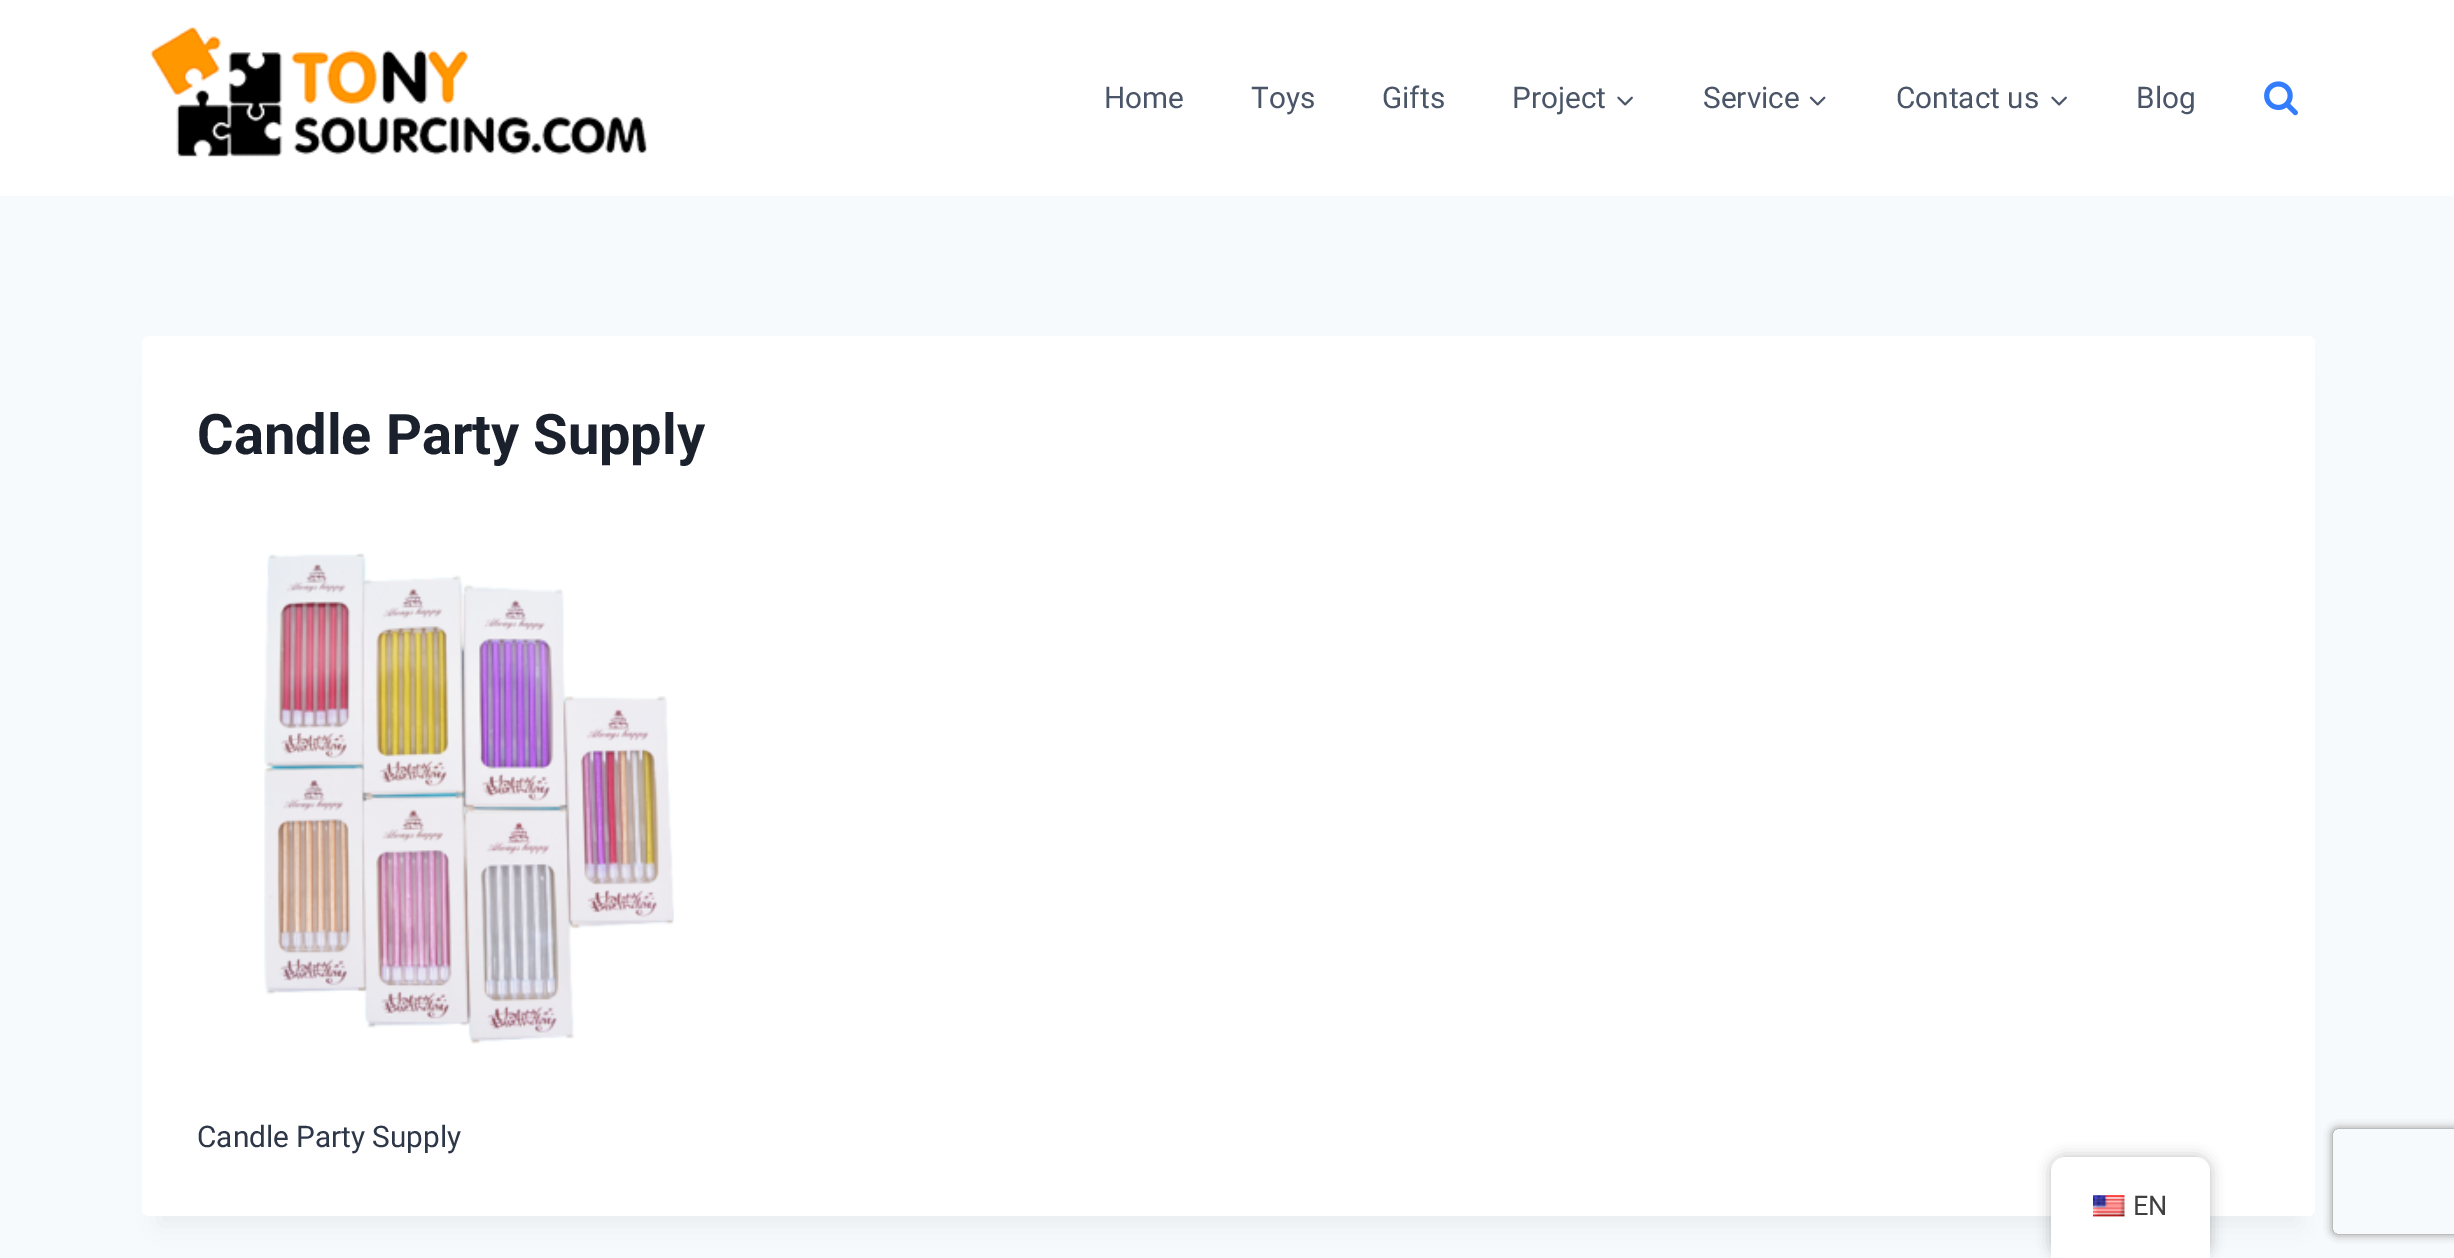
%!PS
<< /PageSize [2454 1258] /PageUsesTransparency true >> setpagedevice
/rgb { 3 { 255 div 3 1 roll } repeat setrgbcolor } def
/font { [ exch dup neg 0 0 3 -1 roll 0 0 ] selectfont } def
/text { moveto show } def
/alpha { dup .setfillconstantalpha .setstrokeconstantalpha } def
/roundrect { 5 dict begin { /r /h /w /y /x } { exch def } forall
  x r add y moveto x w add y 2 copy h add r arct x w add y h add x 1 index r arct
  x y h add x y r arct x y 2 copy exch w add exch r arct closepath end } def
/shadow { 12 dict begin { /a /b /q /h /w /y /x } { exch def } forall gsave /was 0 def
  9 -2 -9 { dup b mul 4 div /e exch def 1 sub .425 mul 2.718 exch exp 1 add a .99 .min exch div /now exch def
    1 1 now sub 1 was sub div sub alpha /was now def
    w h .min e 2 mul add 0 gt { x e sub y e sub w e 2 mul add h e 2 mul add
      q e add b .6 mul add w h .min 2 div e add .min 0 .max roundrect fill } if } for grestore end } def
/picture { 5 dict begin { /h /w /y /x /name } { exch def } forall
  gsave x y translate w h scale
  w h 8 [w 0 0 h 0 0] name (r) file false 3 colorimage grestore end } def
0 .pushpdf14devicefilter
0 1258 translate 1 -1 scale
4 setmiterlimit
247 250 252 rgb
0 0 2454 1258 rectfill
255 255 255 rgb
0 0 2454 196 rectfill
(img_01.rgb) 150 27 498 131 picture
(img_02.rgb) 1617 96 16 10 picture
(img_03.rgb) 1809 96 17 10 picture
(img_02.rgb) 2051 96 16 10 picture
(img_04.rgb) 2264 81 34 35 picture
0 0 0 rgb
159 380 2139 845 0 13 0.05 shadow
255 255 255 rgb
142 336 2173 880 7 roundrect fill
(img_05.rgb) 264 553 410 491 picture
0 0 0 rgb
2051 1157 159 101 14 7 0.25 shadow
255 255 255 rgb
2065 1157 moveto 131 0 rlineto 7.5 0 14 6.5 14 14 rcurveto 0 87 rlineto -159 0 rlineto 0 -87 rlineto 0 -7.5 6.5 -14 14 -14 rcurveto closepath fill
(img_06.rgb) 2093 1195 32 22 picture
gsave
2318 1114 moveto 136 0 rlineto 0 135 rlineto -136 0 rlineto closepath 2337 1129 moveto 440 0 rlineto 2 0 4 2 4 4 rcurveto 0 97 rlineto 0 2 -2 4 -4 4 rcurveto -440 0 rlineto -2 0 -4 -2 -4 -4 rcurveto 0 -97 rlineto 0 -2 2 -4 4 -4 rcurveto closepath eoclip newpath
128 128 128 rgb
2333 1129 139 105 4 4.5 1 shadow
grestore
/Roboto-Regular 29.75 font
74 85 104 rgb
(Home) 1104 108 text
(Toys) 1251 108 text
(Gifts) 1382 108 text
(Project) 1512 108 text
(Service) 1703 108 text
(Contact us) 1896 108 text
(Blog) 2136 108 text
/Roboto-Bold 56 font
26 32 44 rgb
(Candle Party Supply) 197 454 text
/Roboto-Regular 29.75 font
45 55 72 rgb
(Candle Party Supply) 197 1147 text
/Roboto-Regular 27 font
64 64 64 rgb
(EN) 2133 1215 text
.poppdf14devicefilter showpage
